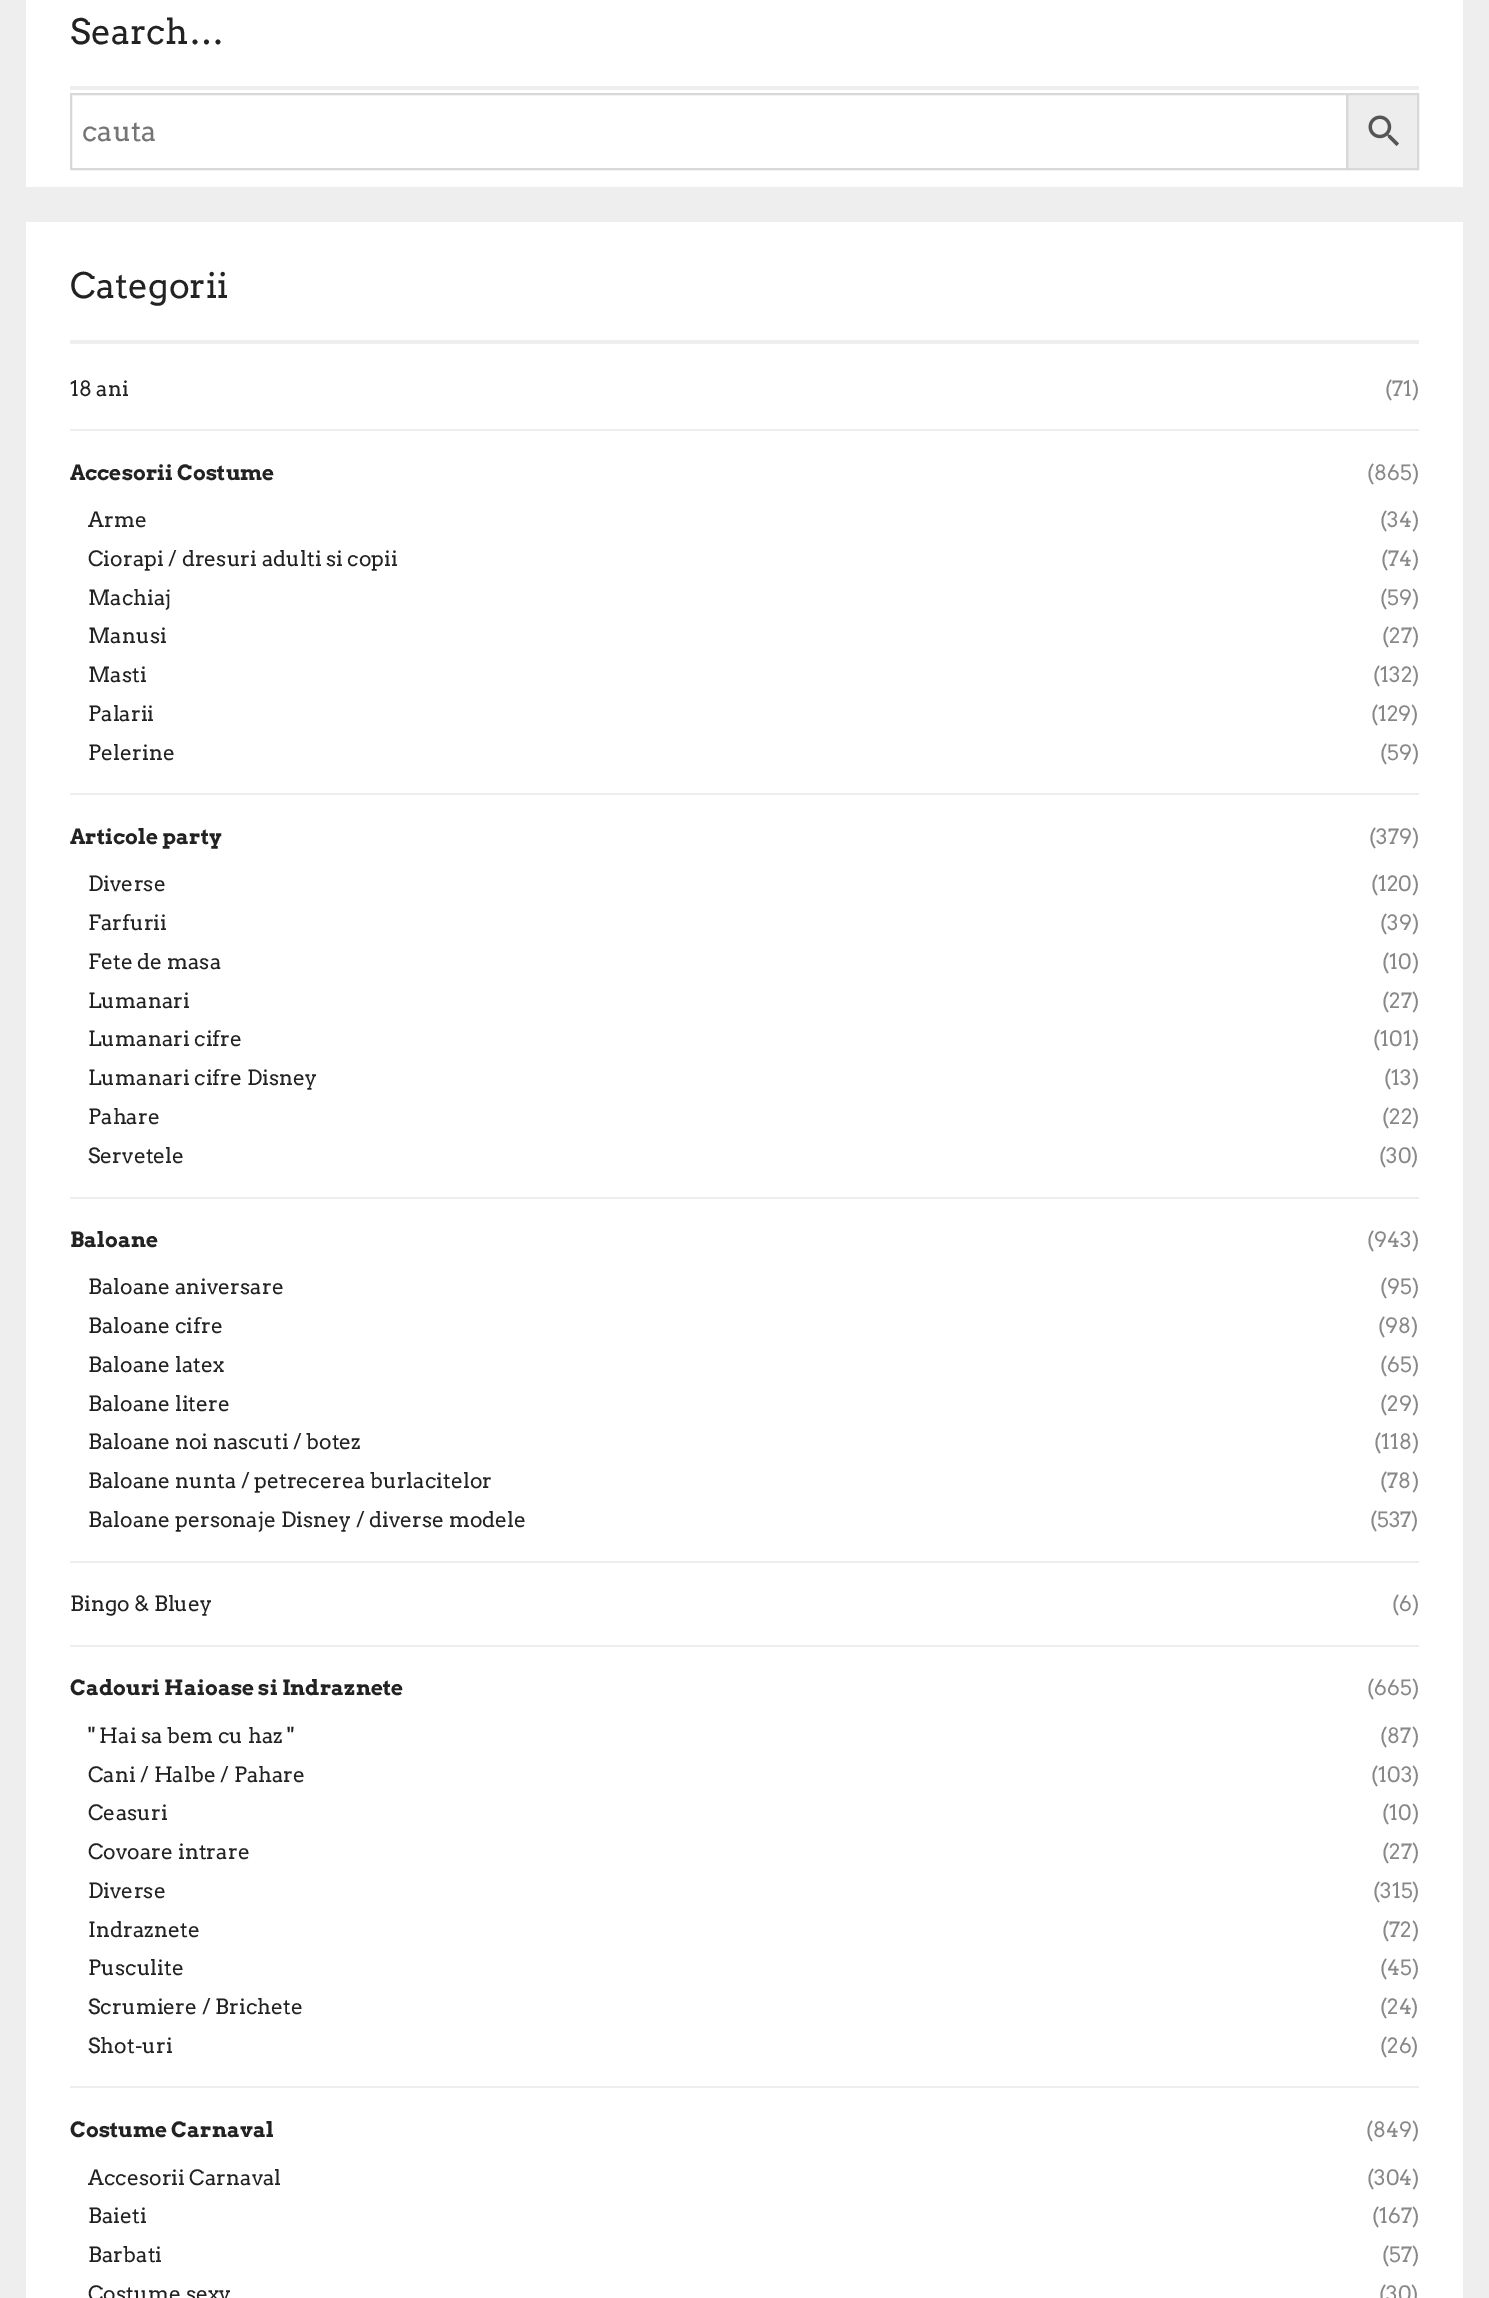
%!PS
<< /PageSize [1489 2298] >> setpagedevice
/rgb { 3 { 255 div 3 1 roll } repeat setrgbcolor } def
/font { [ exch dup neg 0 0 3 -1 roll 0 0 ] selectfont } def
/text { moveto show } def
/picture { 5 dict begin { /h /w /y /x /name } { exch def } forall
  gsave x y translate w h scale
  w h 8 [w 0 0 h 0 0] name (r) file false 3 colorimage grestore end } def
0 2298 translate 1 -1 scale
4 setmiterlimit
238 238 238 rgb
0 0 1489 2298 rectfill
255 255 255 rgb
26 0 1437 187 rectfill
238 238 238 rgb
70 86 1349 4 rectfill
237 237 237 rgb
1347 94 moveto 71 0 rlineto 0 75 rlineto -71 0 rlineto closepath gsave fill grestore
216 216 216 rgb
2 setlinewidth
stroke
71 94 1276 75 rectstroke
(img_01.rgb) 1368 115 31 31 picture
255 255 255 rgb
26 222 1437 2076 rectfill
238 238 238 rgb
70 340 1349 4 rectfill
70 429 1349 2 rectfill
70 793 1349 2 rectfill
70 1197 1349 2 rectfill
70 1561 1349 2 rectfill
70 1645 1349 2 rectfill
70 2086 1349 2 rectfill
/Arvo-Regular 35 font
34 34 34 rgb
(Search…) 70 44 text
/Arvo-Regular 28 font
117 117 117 rgb
(cauta) 82 141 text
/Arvo-Regular 35 font
34 34 34 rgb
(Categorii) 70 298 text
/Arvo-Regular 21 font
(18 ani) 70 396 text
136 136 136 rgb
(\(71\)) 1385 396 text
/Arvo-Bold 21 font
34 34 34 rgb
(Accesorii Costume) 70 480 text
/Arvo-Regular 21 font
136 136 136 rgb
(\(865\)) 1367 480 text
34 34 34 rgb
(Arme) 88 527 text
136 136 136 rgb
(\(34\)) 1380 527 text
34 34 34 rgb
(Ciorapi / dresuri adulti si copii) 88 566 text
136 136 136 rgb
(\(74\)) 1381 566 text
34 34 34 rgb
(Machiaj) 88 605 text
136 136 136 rgb
(\(59\)) 1380 605 text
34 34 34 rgb
(Manusi) 88 643 text
136 136 136 rgb
(\(27\)) 1382 643 text
34 34 34 rgb
(Masti) 88 682 text
136 136 136 rgb
(\(132\)) 1373 682 text
34 34 34 rgb
(Palarii) 88 721 text
136 136 136 rgb
(\(129\)) 1371 721 text
34 34 34 rgb
(Pelerine) 88 760 text
136 136 136 rgb
(\(59\)) 1380 760 text
/Arvo-Bold 21 font
34 34 34 rgb
(Articole party) 70 844 text
/Arvo-Regular 21 font
136 136 136 rgb
(\(379\)) 1369 844 text
34 34 34 rgb
(Diverse) 88 891 text
136 136 136 rgb
(\(120\)) 1371 891 text
34 34 34 rgb
(Farfurii) 88 930 text
136 136 136 rgb
(\(39\)) 1380 930 text
34 34 34 rgb
(Fete de masa) 88 969 text
136 136 136 rgb
(\(10\)) 1382 969 text
34 34 34 rgb
(Lumanari) 88 1008 text
136 136 136 rgb
(\(27\)) 1382 1008 text
34 34 34 rgb
(Lumanari cifre) 88 1046 text
136 136 136 rgb
(\(101\)) 1373 1046 text
34 34 34 rgb
(Lumanari cifre Disney) 88 1085 text
136 136 136 rgb
(\(13\)) 1384 1085 text
34 34 34 rgb
(Pahare) 88 1124 text
136 136 136 rgb
(\(22\)) 1382 1124 text
34 34 34 rgb
(Servetele) 88 1163 text
136 136 136 rgb
(\(30\)) 1379 1163 text
/Arvo-Bold 21 font
34 34 34 rgb
(Baloane) 70 1247 text
/Arvo-Regular 21 font
136 136 136 rgb
(\(943\)) 1367 1247 text
34 34 34 rgb
(Baloane aniversare) 88 1294 text
136 136 136 rgb
(\(95\)) 1380 1294 text
34 34 34 rgb
(Baloane cifre) 88 1333 text
136 136 136 rgb
(\(98\)) 1378 1333 text
34 34 34 rgb
(Baloane latex) 88 1372 text
136 136 136 rgb
(\(65\)) 1380 1372 text
34 34 34 rgb
(Baloane litere) 88 1411 text
136 136 136 rgb
(\(29\)) 1380 1411 text
34 34 34 rgb
(Baloane noi nascuti / botez) 88 1449 text
136 136 136 rgb
(\(118\)) 1374 1449 text
34 34 34 rgb
(Baloane nunta / petrecerea burlacitelor) 88 1488 text
136 136 136 rgb
(\(78\)) 1380 1488 text
34 34 34 rgb
(Baloane personaje Disney / diverse modele) 88 1527 text
136 136 136 rgb
(\(537\)) 1370 1527 text
34 34 34 rgb
(Bingo & Bluey) 70 1611 text
136 136 136 rgb
(\(6\)) 1392 1611 text
/Arvo-Bold 21 font
34 34 34 rgb
(Cadouri Haioase si Indraznete) 70 1695 text
/Arvo-Regular 21 font
136 136 136 rgb
(\(665\)) 1367 1695 text
34 34 34 rgb
(" Hai sa bem cu haz ") 88 1743 text
136 136 136 rgb
(\(87\)) 1380 1743 text
34 34 34 rgb
(Cani / Halbe / Pahare) 88 1782 text
136 136 136 rgb
(\(103\)) 1371 1782 text
34 34 34 rgb
(Ceasuri) 88 1820 text
136 136 136 rgb
(\(10\)) 1382 1820 text
34 34 34 rgb
(Covoare intrare) 88 1859 text
136 136 136 rgb
(\(27\)) 1382 1859 text
34 34 34 rgb
(Diverse) 88 1898 text
136 136 136 rgb
(\(315\)) 1373 1898 text
34 34 34 rgb
(Indraznete) 88 1937 text
136 136 136 rgb
(\(72\)) 1382 1937 text
34 34 34 rgb
(Pusculite) 88 1975 text
136 136 136 rgb
(\(45\)) 1380 1975 text
34 34 34 rgb
(Scrumiere / Brichete) 88 2014 text
136 136 136 rgb
(\(24\)) 1380 2014 text
34 34 34 rgb
(Shot-uri) 88 2053 text
136 136 136 rgb
(\(26\)) 1380 2053 text
/Arvo-Bold 21 font
34 34 34 rgb
(Costume Carnaval) 70 2137 text
/Arvo-Regular 21 font
136 136 136 rgb
(\(849\)) 1366 2137 text
34 34 34 rgb
(Accesorii Carnaval) 88 2185 text
136 136 136 rgb
(\(304\)) 1367 2185 text
34 34 34 rgb
(Baieti) 88 2223 text
136 136 136 rgb
(\(167\)) 1372 2223 text
34 34 34 rgb
(Barbati) 88 2262 text
136 136 136 rgb
(\(57\)) 1382 2262 text
34 34 34 rgb
(Costume sexy) 88 2301 text
136 136 136 rgb
(\(30\)) 1379 2301 text
showpage
